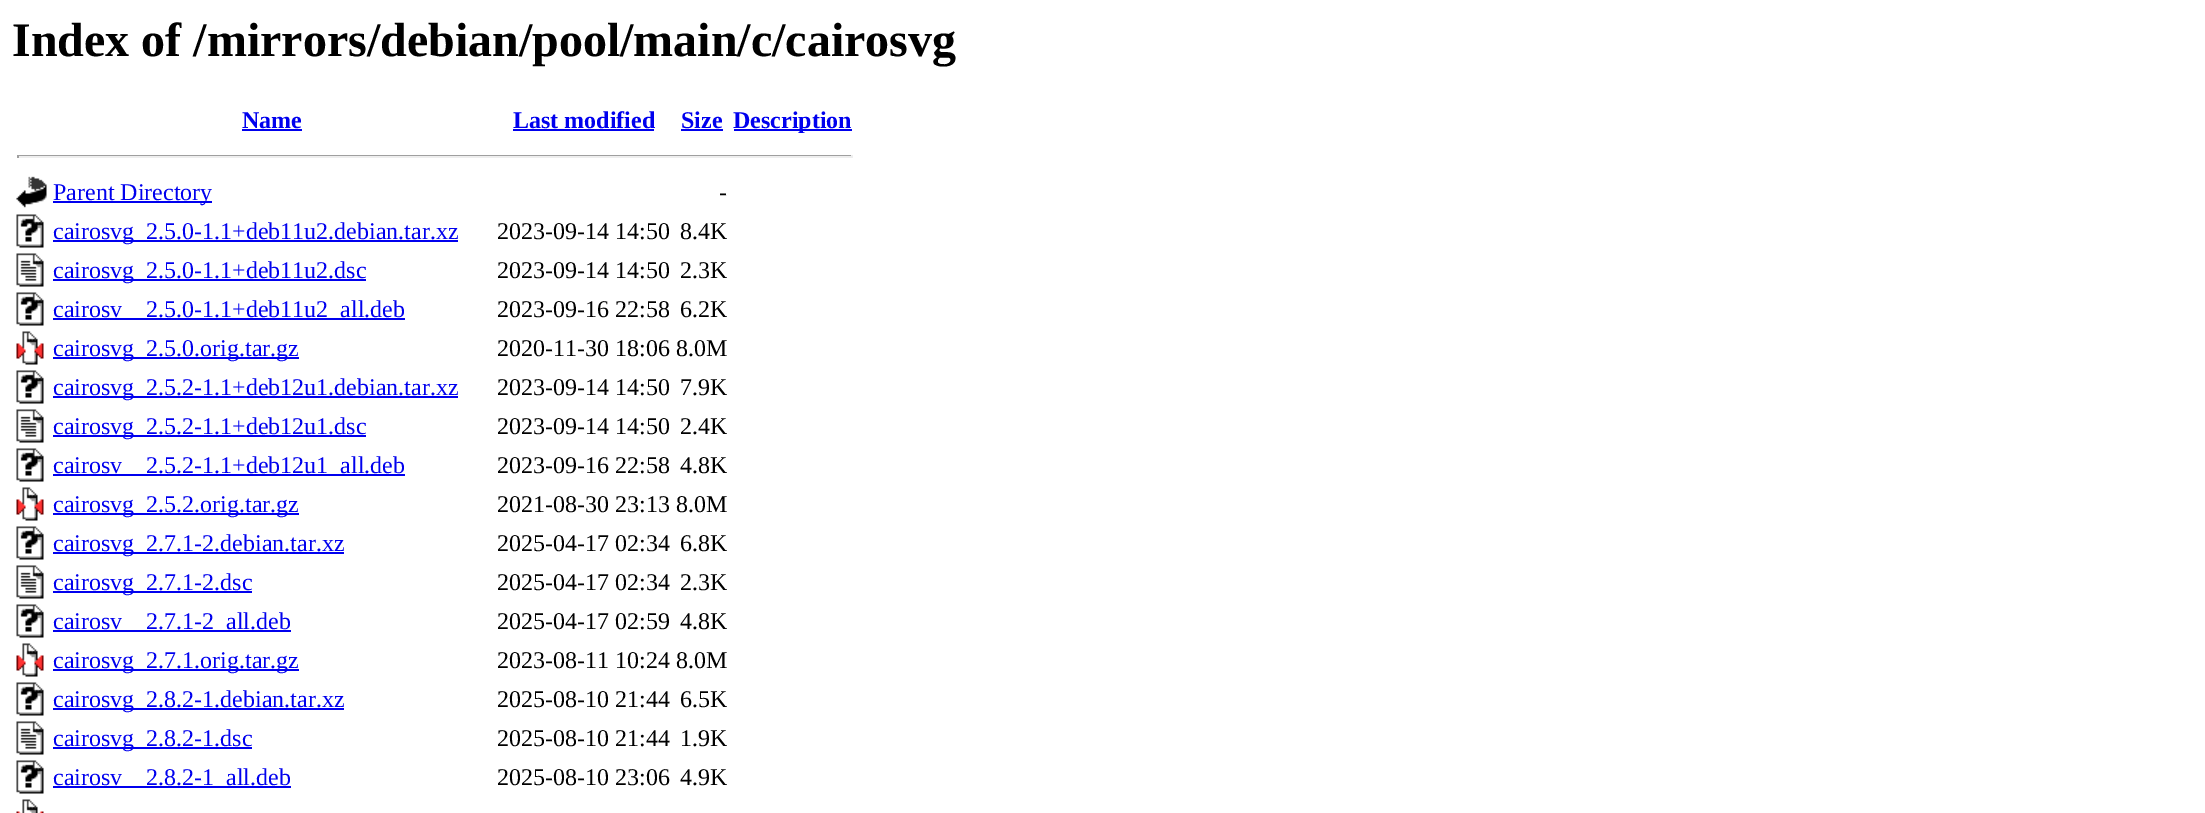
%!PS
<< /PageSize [2205 813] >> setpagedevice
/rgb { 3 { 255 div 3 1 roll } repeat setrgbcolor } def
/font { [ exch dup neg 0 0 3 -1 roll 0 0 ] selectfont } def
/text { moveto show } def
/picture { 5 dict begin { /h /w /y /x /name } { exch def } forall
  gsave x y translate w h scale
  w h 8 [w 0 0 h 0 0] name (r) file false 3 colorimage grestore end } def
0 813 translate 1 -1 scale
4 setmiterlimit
255 255 255 rgb
0 0 2205 813 rectfill
0 0 238 rgb
242 129 60 2 rectfill
513 129 141 2 rectfill
681 129 42 2 rectfill
734 129 118 2 rectfill
159 159 159 rgb
17 155 835 1 rectfill
238 238 238 rgb
851 155 2 3 rectfill
17 156 835 2 rectfill
159 159 159 rgb
17 155 2 3 rectfill
(img_01.rgb) 16 176 31 32 picture
0 0 238 rgb
53 201 159 2 rectfill
(img_02.rgb) 16 214 28 34 picture
53 240 405 2 rectfill
(img_03.rgb) 16 253 28 34 picture
53 279 313 2 rectfill
(img_02.rgb) 16 292 28 34 picture
53 318 352 2 rectfill
(img_04.rgb) 16 331 28 34 picture
53 357 246 2 rectfill
(img_02.rgb) 16 370 28 34 picture
53 396 405 2 rectfill
(img_03.rgb) 16 409 28 34 picture
53 435 313 2 rectfill
(img_02.rgb) 16 448 28 34 picture
53 474 352 2 rectfill
(img_04.rgb) 16 487 28 34 picture
53 513 246 2 rectfill
(img_02.rgb) 16 526 28 34 picture
53 552 291 2 rectfill
(img_03.rgb) 16 565 28 34 picture
53 591 199 2 rectfill
(img_02.rgb) 16 604 28 34 picture
53 630 238 2 rectfill
(img_04.rgb) 16 643 28 34 picture
53 669 246 2 rectfill
(img_02.rgb) 16 682 28 34 picture
53 708 291 2 rectfill
(img_03.rgb) 16 721 28 34 picture
53 747 199 2 rectfill
(img_02.rgb) 16 760 28 34 picture
53 786 238 2 rectfill
(img_05.rgb) 16 799 28 14 picture
/LiberationSerif-Bold 48 font
0 0 0 rgb
(Index of /mirrors/debian/pool/main/c/cairosvg) 12 56 text
/LiberationSerif-Bold 24 font
0 0 238 rgb
(Name) 242 128 text
(Last modified) 513 128 text
(Size) 681 128 text
(Description) 733 128 text
/LiberationSerif-Regular 24 font
(Parent Directory) 53 200 text
0 0 0 rgb
(-) 719 200 text
0 0 238 rgb
(cairosvg_2.5.0-1.1+deb11u2.debian.tar.xz) 53 239 text
0 0 0 rgb
(2023-09-14 14:50) 497 239 text
(8.4K) 680 239 text
0 0 238 rgb
(cairosvg_2.5.0-1.1+deb11u2.dsc) 53 278 text
0 0 0 rgb
(2023-09-14 14:50) 497 278 text
(2.3K) 680 278 text
0 0 238 rgb
(cairosv) 53 317 text
(2.5.0-1.1+deb11u2_all.deb) 146 317 text
0 0 0 rgb
(2023-09-16 22:58) 497 317 text
(6.2K) 680 317 text
0 0 238 rgb
(cairosvg_2.5.0.orig.tar.gz) 53 356 text
0 0 0 rgb
(2020-11-30 18:06 8.0M) 497 356 text
0 0 238 rgb
(cairosvg_2.5.2-1.1+deb12u1.debian.tar.xz) 53 395 text
0 0 0 rgb
(2023-09-14 14:50) 497 395 text
(7.9K) 680 395 text
0 0 238 rgb
(cairosvg_2.5.2-1.1+deb12u1.dsc) 53 434 text
0 0 0 rgb
(2023-09-14 14:50) 497 434 text
(2.4K) 680 434 text
0 0 238 rgb
(cairosv) 53 473 text
(2.5.2-1.1+deb12u1_all.deb) 146 473 text
0 0 0 rgb
(2023-09-16 22:58) 497 473 text
(4.8K) 680 473 text
0 0 238 rgb
(cairosvg_2.5.2.orig.tar.gz) 53 512 text
0 0 0 rgb
(2021-08-30 23:13 8.0M) 497 512 text
0 0 238 rgb
(cairosvg_2.7.1-2.debian.tar.xz) 53 551 text
0 0 0 rgb
(2025-04-17 02:34) 497 551 text
(6.8K) 680 551 text
0 0 238 rgb
(cairosvg_2.7.1-2.dsc) 53 590 text
0 0 0 rgb
(2025-04-17 02:34) 497 590 text
(2.3K) 680 590 text
0 0 238 rgb
(cairosv) 53 629 text
(2.7.1-2_all.deb) 146 629 text
0 0 0 rgb
(2025-04-17 02:59) 497 629 text
(4.8K) 680 629 text
0 0 238 rgb
(cairosvg_2.7.1.orig.tar.gz) 53 668 text
0 0 0 rgb
(2023-08-11 10:24 8.0M) 497 668 text
0 0 238 rgb
(cairosvg_2.8.2-1.debian.tar.xz) 53 707 text
0 0 0 rgb
(2025-08-10 21:44) 497 707 text
(6.5K) 680 707 text
0 0 238 rgb
(cairosvg_2.8.2-1.dsc) 53 746 text
0 0 0 rgb
(2025-08-10 21:44) 497 746 text
(1.9K) 680 746 text
0 0 238 rgb
(cairosv) 53 785 text
(2.8.2-1_all.deb) 146 785 text
0 0 0 rgb
(2025-08-10 23:06) 497 785 text
(4.9K) 680 785 text
showpage
